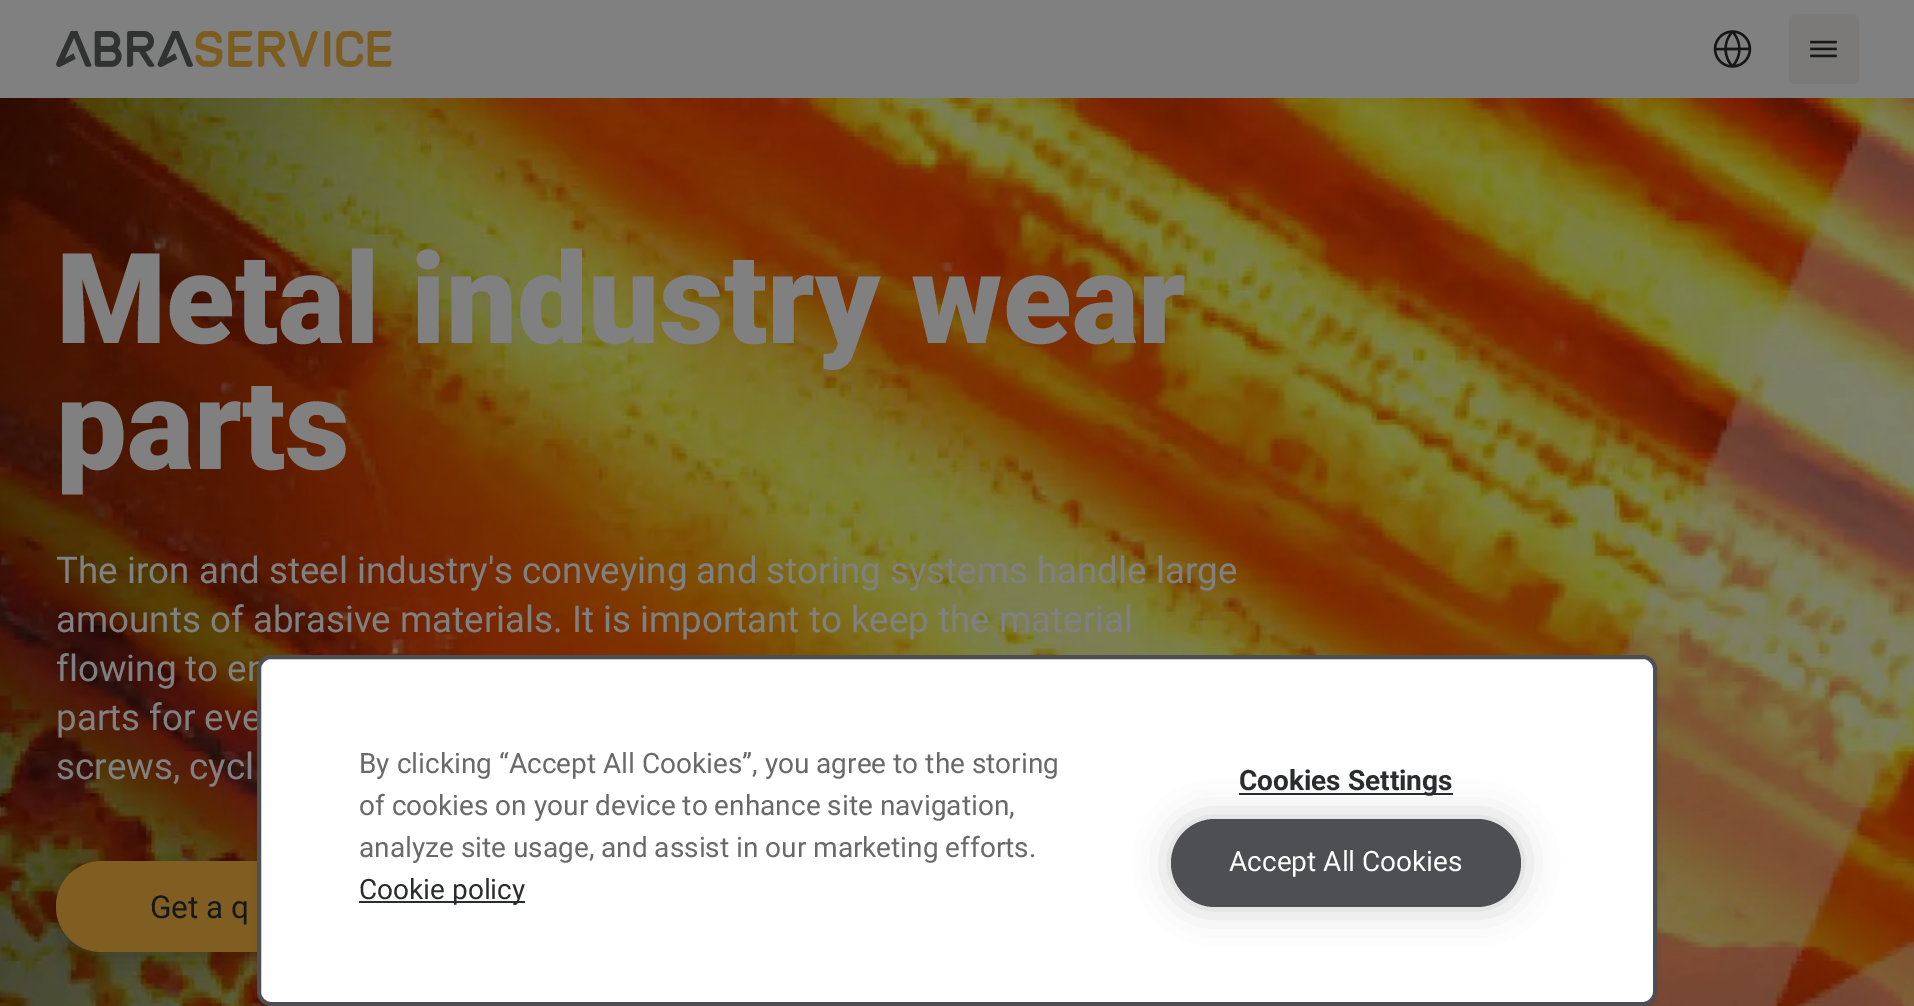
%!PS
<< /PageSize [1914 1006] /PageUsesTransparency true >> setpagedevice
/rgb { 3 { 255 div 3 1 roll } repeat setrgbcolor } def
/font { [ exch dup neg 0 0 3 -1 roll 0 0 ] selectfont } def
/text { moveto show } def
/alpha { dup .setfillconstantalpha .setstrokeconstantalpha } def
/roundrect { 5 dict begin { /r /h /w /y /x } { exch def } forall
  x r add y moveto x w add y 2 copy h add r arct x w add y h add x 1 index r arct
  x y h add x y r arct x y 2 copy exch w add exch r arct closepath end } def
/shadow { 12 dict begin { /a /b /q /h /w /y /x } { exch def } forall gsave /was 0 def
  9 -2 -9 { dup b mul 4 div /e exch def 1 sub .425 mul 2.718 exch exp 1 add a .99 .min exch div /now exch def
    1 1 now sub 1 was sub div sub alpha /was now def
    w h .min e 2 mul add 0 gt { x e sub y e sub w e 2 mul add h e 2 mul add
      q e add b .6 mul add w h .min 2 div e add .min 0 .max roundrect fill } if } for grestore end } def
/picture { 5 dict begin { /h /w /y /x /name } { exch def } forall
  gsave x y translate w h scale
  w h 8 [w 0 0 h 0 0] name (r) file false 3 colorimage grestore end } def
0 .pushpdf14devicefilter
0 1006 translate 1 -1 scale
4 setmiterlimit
128 128 128 rgb
0 0 1914 1006 rectfill
(img_01.rgb) 56 31 336 36 picture
(img_02.rgb) 1713 30 39 38 picture
123 122 121 rgb
1789 14 70 70 7 roundrect fill
(img_03.rgb) 1810 40 27 18 picture
(img_04.rgb) 0 98 1914 908 picture
0 0 0 rgb
56 870 350 91 45.5 13 0.2 shadow
128 93 32 rgb
56 861 350 91 45.5 roundrect fill
0 0 0 rgb
261 662 1393 344 11 3.5 0.1 shadow
259 663 1397 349 12 5 0.1 shadow
/Roboto-Black 126 font
128 128 128 rgb
(Metal industry wear) 56 343 text
(parts) 56 469 text
/Roboto-Regular 36.75 font
(The iron and steel industry's conveying and storing systems handle large) 56 583 text
(amounts of abrasive materials. It is important to keep the material) 56 632 text
(flowing to en) 56 681 text
(parts for eve) 56 730 text
(screws, cycl) 56 779 text
/Roboto-Regular 31.5 font
23 24 25 rgb
(Get a q) 150 918 text
255 255 255 rgb
259 657 1396 347 12 roundrect gsave fill grestore
77 79 83 rgb
4 setlinewidth
stroke
/Roboto-Regular 28 font
105 105 105 rgb
(By clicking “Accept All Cookies”, you agree to the storing) 359 773 text
(of cookies on your device to enhance site navigation,) 359 815 text
(analyze site usage, and assist in our marketing efforts.) 359 857 text
43 44 45 rgb
359 901 166 2 rectfill
(Cookie policy) 359 899 text
1239 793 214 2 rectfill
/Roboto-Bold 28 font
(Cookies Settings) 1239 790 text
0 0 0 rgb
1171 819 350 88 44 17.5 0.2 shadow
77 79 83 rgb
1171 819 350 88 44 roundrect fill
/Roboto-Regular 28 font
255 255 255 rgb
(Accept All Cookies) 1229 871 text
.poppdf14devicefilter showpage
